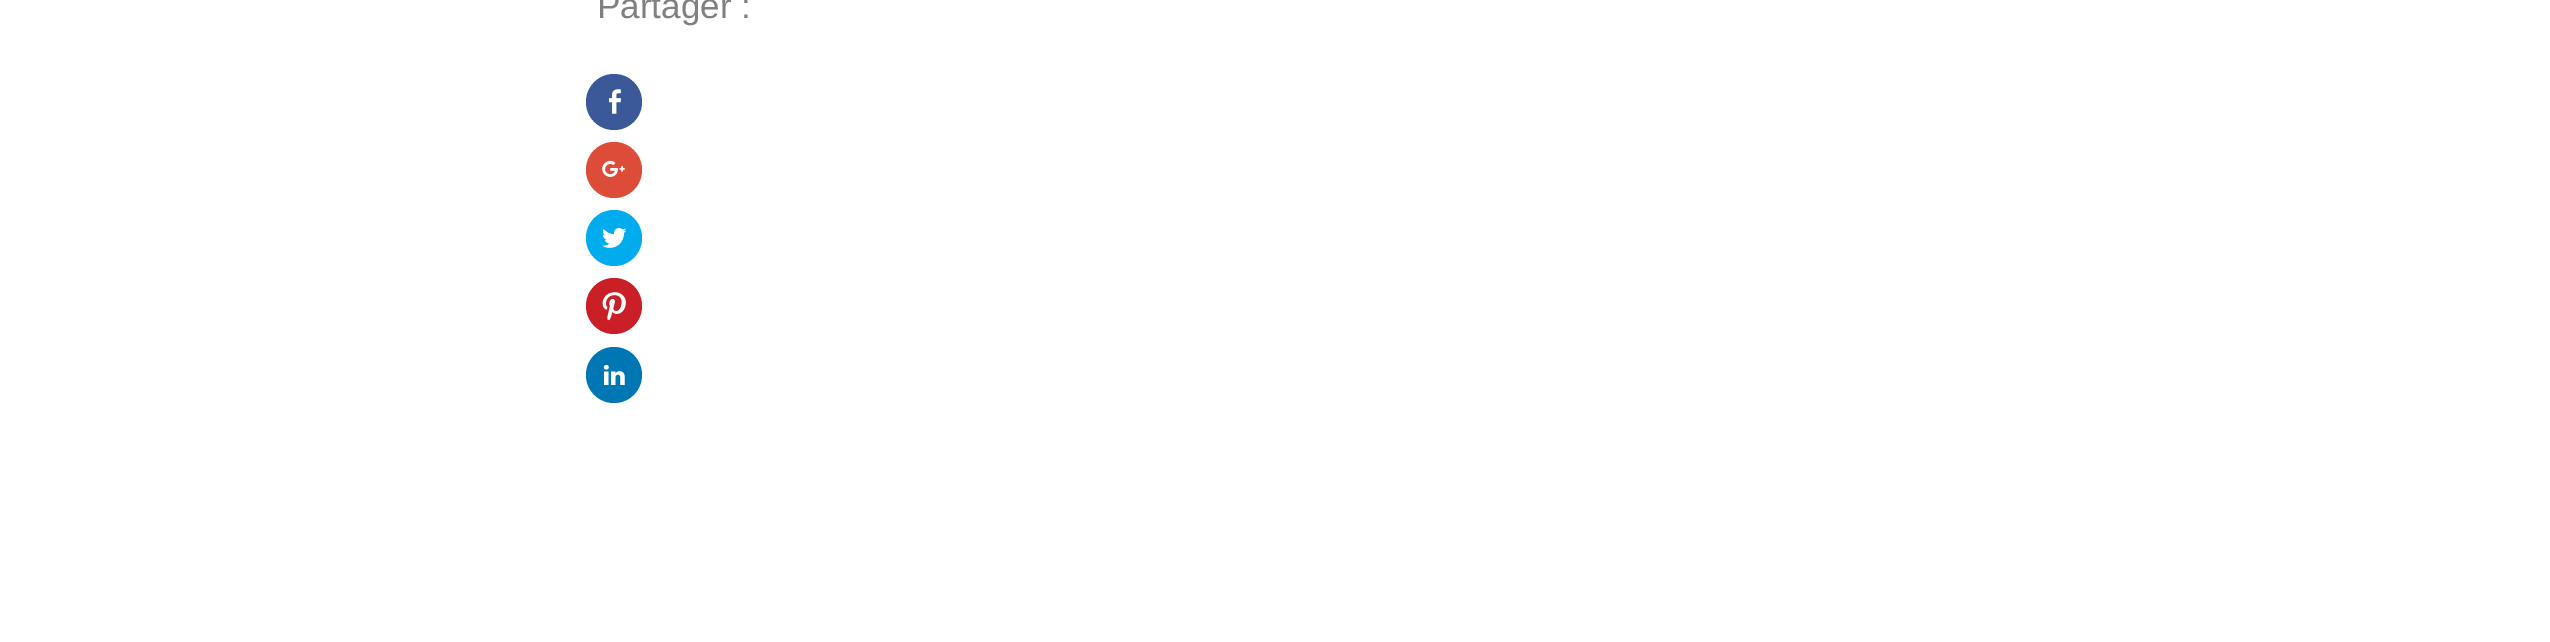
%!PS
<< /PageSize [2550 642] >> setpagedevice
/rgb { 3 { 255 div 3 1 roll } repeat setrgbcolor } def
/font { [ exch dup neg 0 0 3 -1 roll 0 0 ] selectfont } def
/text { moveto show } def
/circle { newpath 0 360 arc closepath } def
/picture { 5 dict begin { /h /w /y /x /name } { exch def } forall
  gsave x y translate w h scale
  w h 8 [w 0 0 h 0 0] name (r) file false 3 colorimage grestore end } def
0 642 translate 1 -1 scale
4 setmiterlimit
255 255 255 rgb
0 0 2550 642 rectfill
59 89 152 rgb
614 102 28 circle fill
(img_01.rgb) 609 89 12 25 picture
221 75 57 rgb
614 170 28 circle fill
(img_02.rgb) 602 160 23 17 picture
0 172 238 rgb
614 238 28 circle fill
(img_03.rgb) 602 228 25 20 picture
202 31 39 rgb
614 306 28 circle fill
(img_04.rgb) 602 292 24 29 picture
0 119 181 rgb
614 375 28 circle fill
(img_05.rgb) 603 364 22 21 picture
/LiberationSans-Regular 35 font
128 128 128 rgb
(Partager :) 597 18 text
showpage
